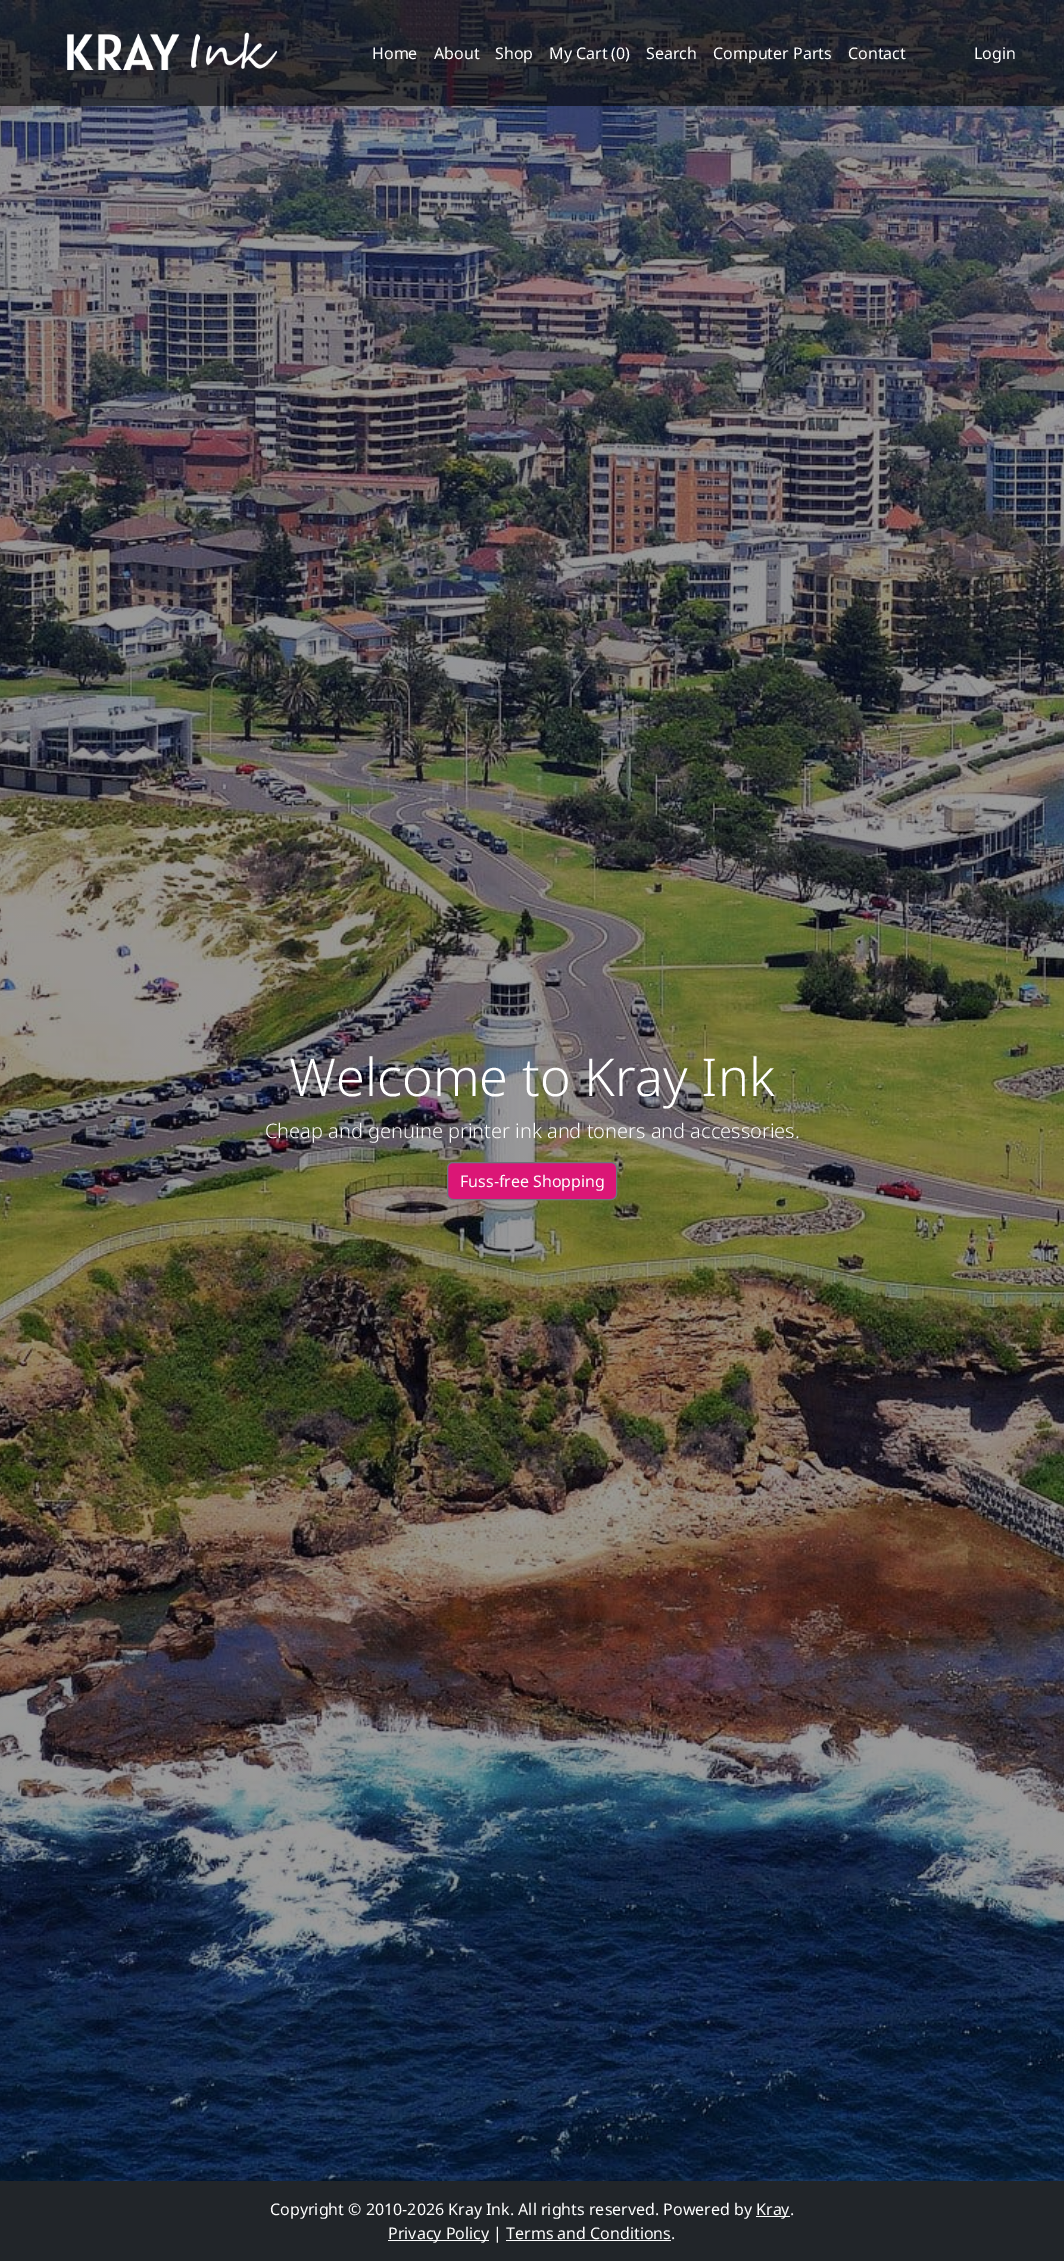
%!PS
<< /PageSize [1064 2261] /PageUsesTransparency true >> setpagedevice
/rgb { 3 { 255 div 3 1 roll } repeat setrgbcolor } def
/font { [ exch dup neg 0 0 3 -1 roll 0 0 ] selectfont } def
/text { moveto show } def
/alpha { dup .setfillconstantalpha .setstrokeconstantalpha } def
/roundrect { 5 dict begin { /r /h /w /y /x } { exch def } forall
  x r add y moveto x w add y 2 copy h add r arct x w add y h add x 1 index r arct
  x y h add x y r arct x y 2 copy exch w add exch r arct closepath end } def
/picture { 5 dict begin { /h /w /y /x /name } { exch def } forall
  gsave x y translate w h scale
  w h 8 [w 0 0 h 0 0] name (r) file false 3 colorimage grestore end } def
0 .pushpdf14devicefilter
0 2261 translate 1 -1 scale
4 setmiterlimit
255 255 255 rgb
0 0 1064 2261 rectfill
(img_02.rgb) 0 0 1064 2181 picture
0.6 alpha
0 0 0 rgb
0 0 1064 106 rectfill
1 alpha
(img_01.rgb) 67 32 211 38 picture
219 22 118 rgb
447.5 1162.5 169 37 5.5 roundrect gsave fill grestore
108 117 125 rgb
stroke
33 37 41 rgb
0 2181 1064 80 rectfill
255 255 255 rgb
756 2216 34 1 rectfill
388 2240 101 1 rectfill
506 2240 165 1 rectfill
/NotoSans-Regular 16 font
(Home) 372 59 text
(About) 434 59 text
(Shop) 495 59 text
(My Cart \(0\)) 549 59 text
(Search) 646 59 text
(Computer Parts) 713 59 text
(Contact) 848 59 text
(Login) 974 59 text
/NotoSans-Light 52.25 font
(Welcome to Kray Ink) 289 1096 text
/NotoSans-Light 20 font
(Cheap and genuine printer ink and toners and accessories.) 265 1138 text
/NotoSans-Regular 16 font
(Fuss-free Shopping) 460 1187 text
(Copyright © 2010-2026 Kray Ink. All rights reserved. Powered by) 270 2215 text
(Kray.) 756 2215 text
(Privacy Policy | Terms and Conditions.) 388 2239 text
.poppdf14devicefilter showpage
